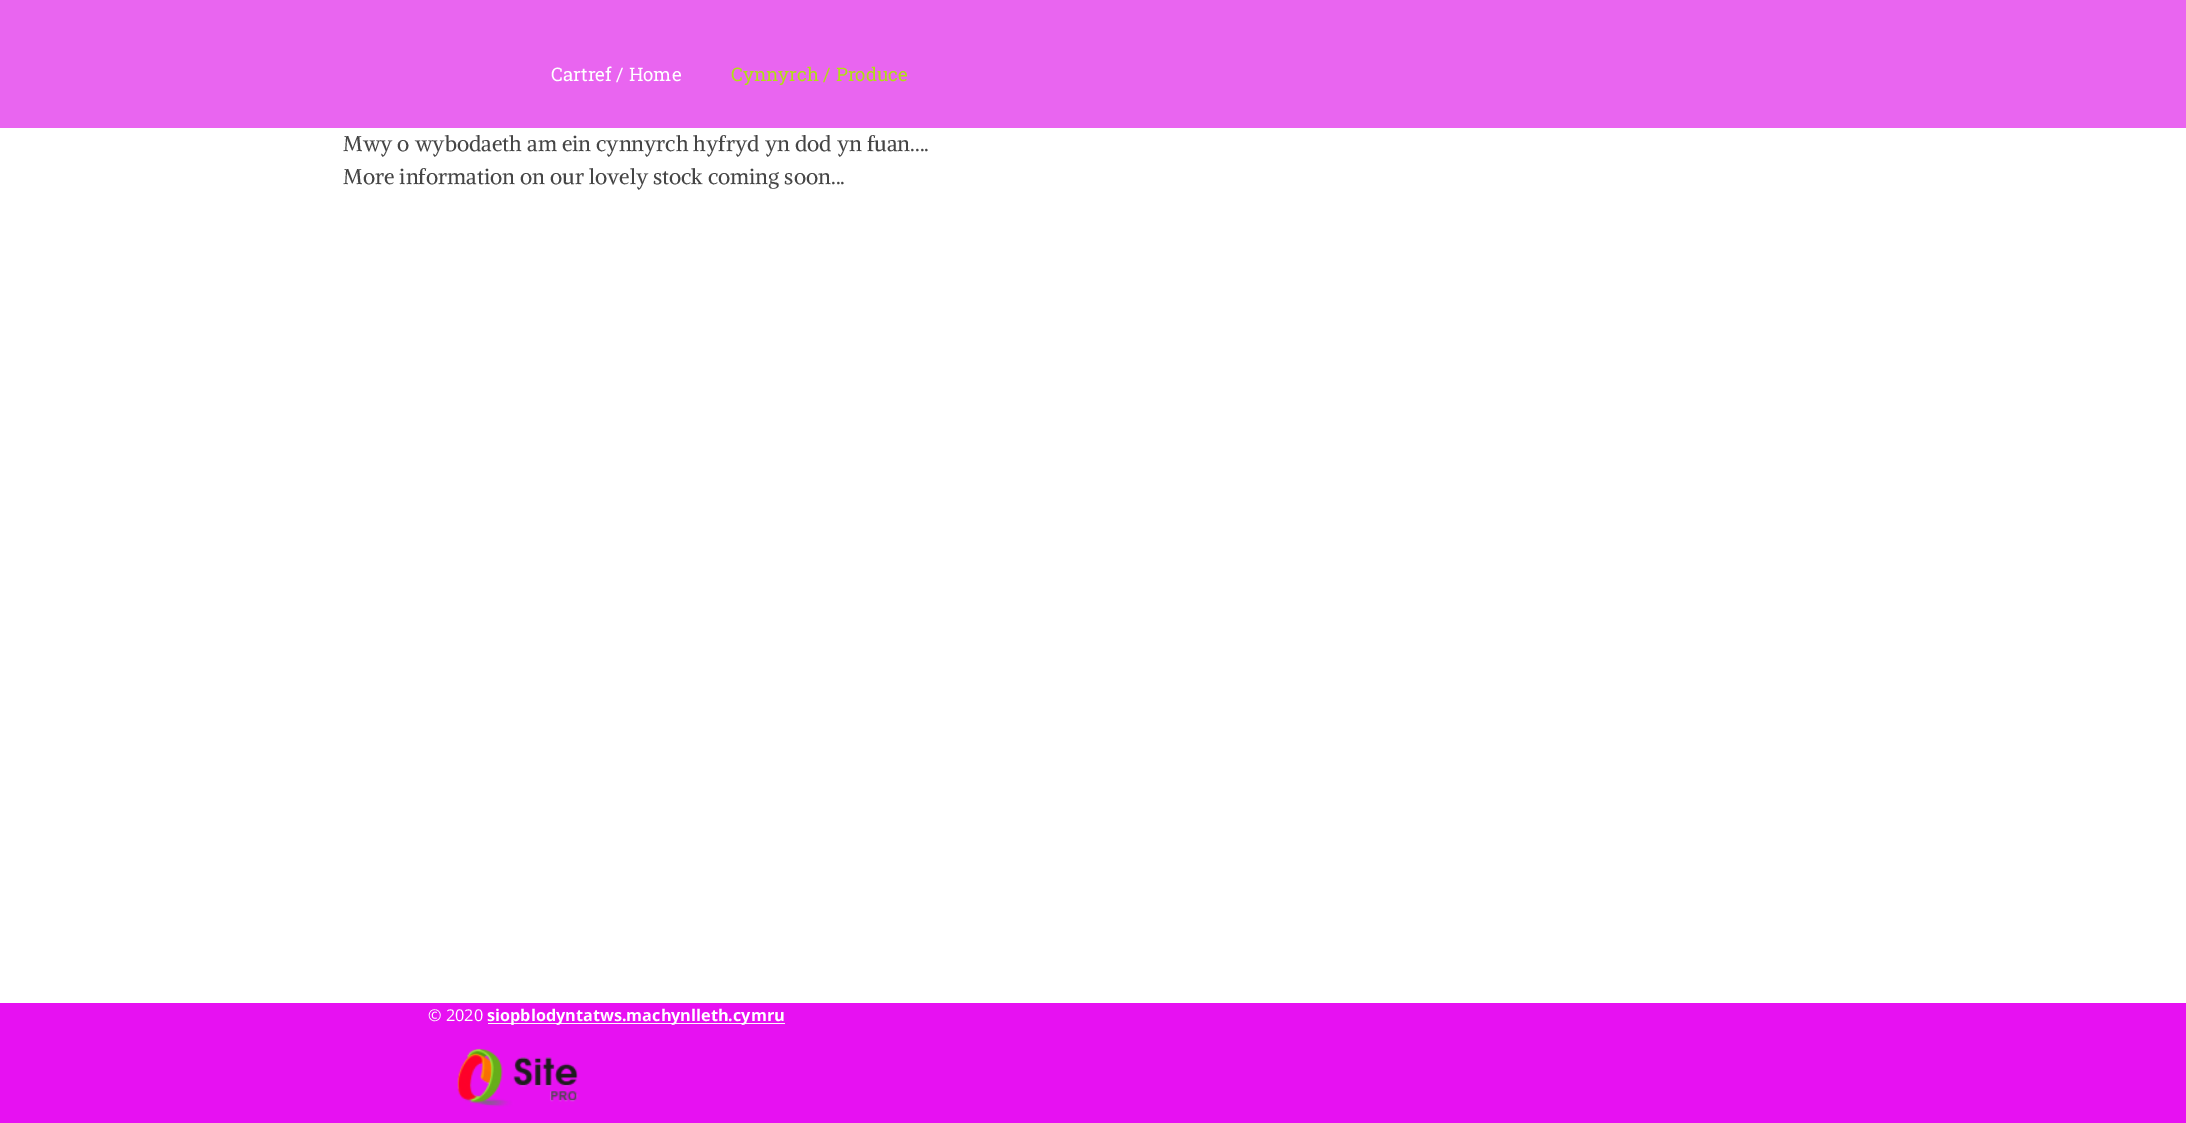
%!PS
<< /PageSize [2186 1123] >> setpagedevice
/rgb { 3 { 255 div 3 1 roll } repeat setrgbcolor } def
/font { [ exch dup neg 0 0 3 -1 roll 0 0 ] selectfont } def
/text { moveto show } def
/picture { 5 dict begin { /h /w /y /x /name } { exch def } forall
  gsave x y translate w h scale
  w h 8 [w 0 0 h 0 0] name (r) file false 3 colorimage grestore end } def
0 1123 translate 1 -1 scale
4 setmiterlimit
255 255 255 rgb
0 0 2186 1123 rectfill
233 101 240 rgb
0 0 2186 128 rectfill
231 17 242 rgb
0 1003 2186 120 rectfill
250 250 250 rgb
488 1023 297 1 rectfill
(img_01.rgb) 457 1048 121 59 picture
/RobotoSlab-Regular 18.75 font
255 255 255 rgb
(Cartref / Home) 551 81 text
176 224 20 rgb
(Cynnyrch / Produce) 731 81 text
/Alike-Regular 21.25 font
69 69 69 rgb
(Mwy o wybodaeth am ein cynnyrch hyfryd yn dod yn fuan....) 343 151 text
(More information on our lovely stock coming soon...) 343 184 text
/OpenSans-Regular 16.25 font
255 255 255 rgb
(© 2020) 428 1021 text
/OpenSans-Bold 16.25 font
(siopblodyntatws.machynlleth.cymru) 487 1021 text
showpage
